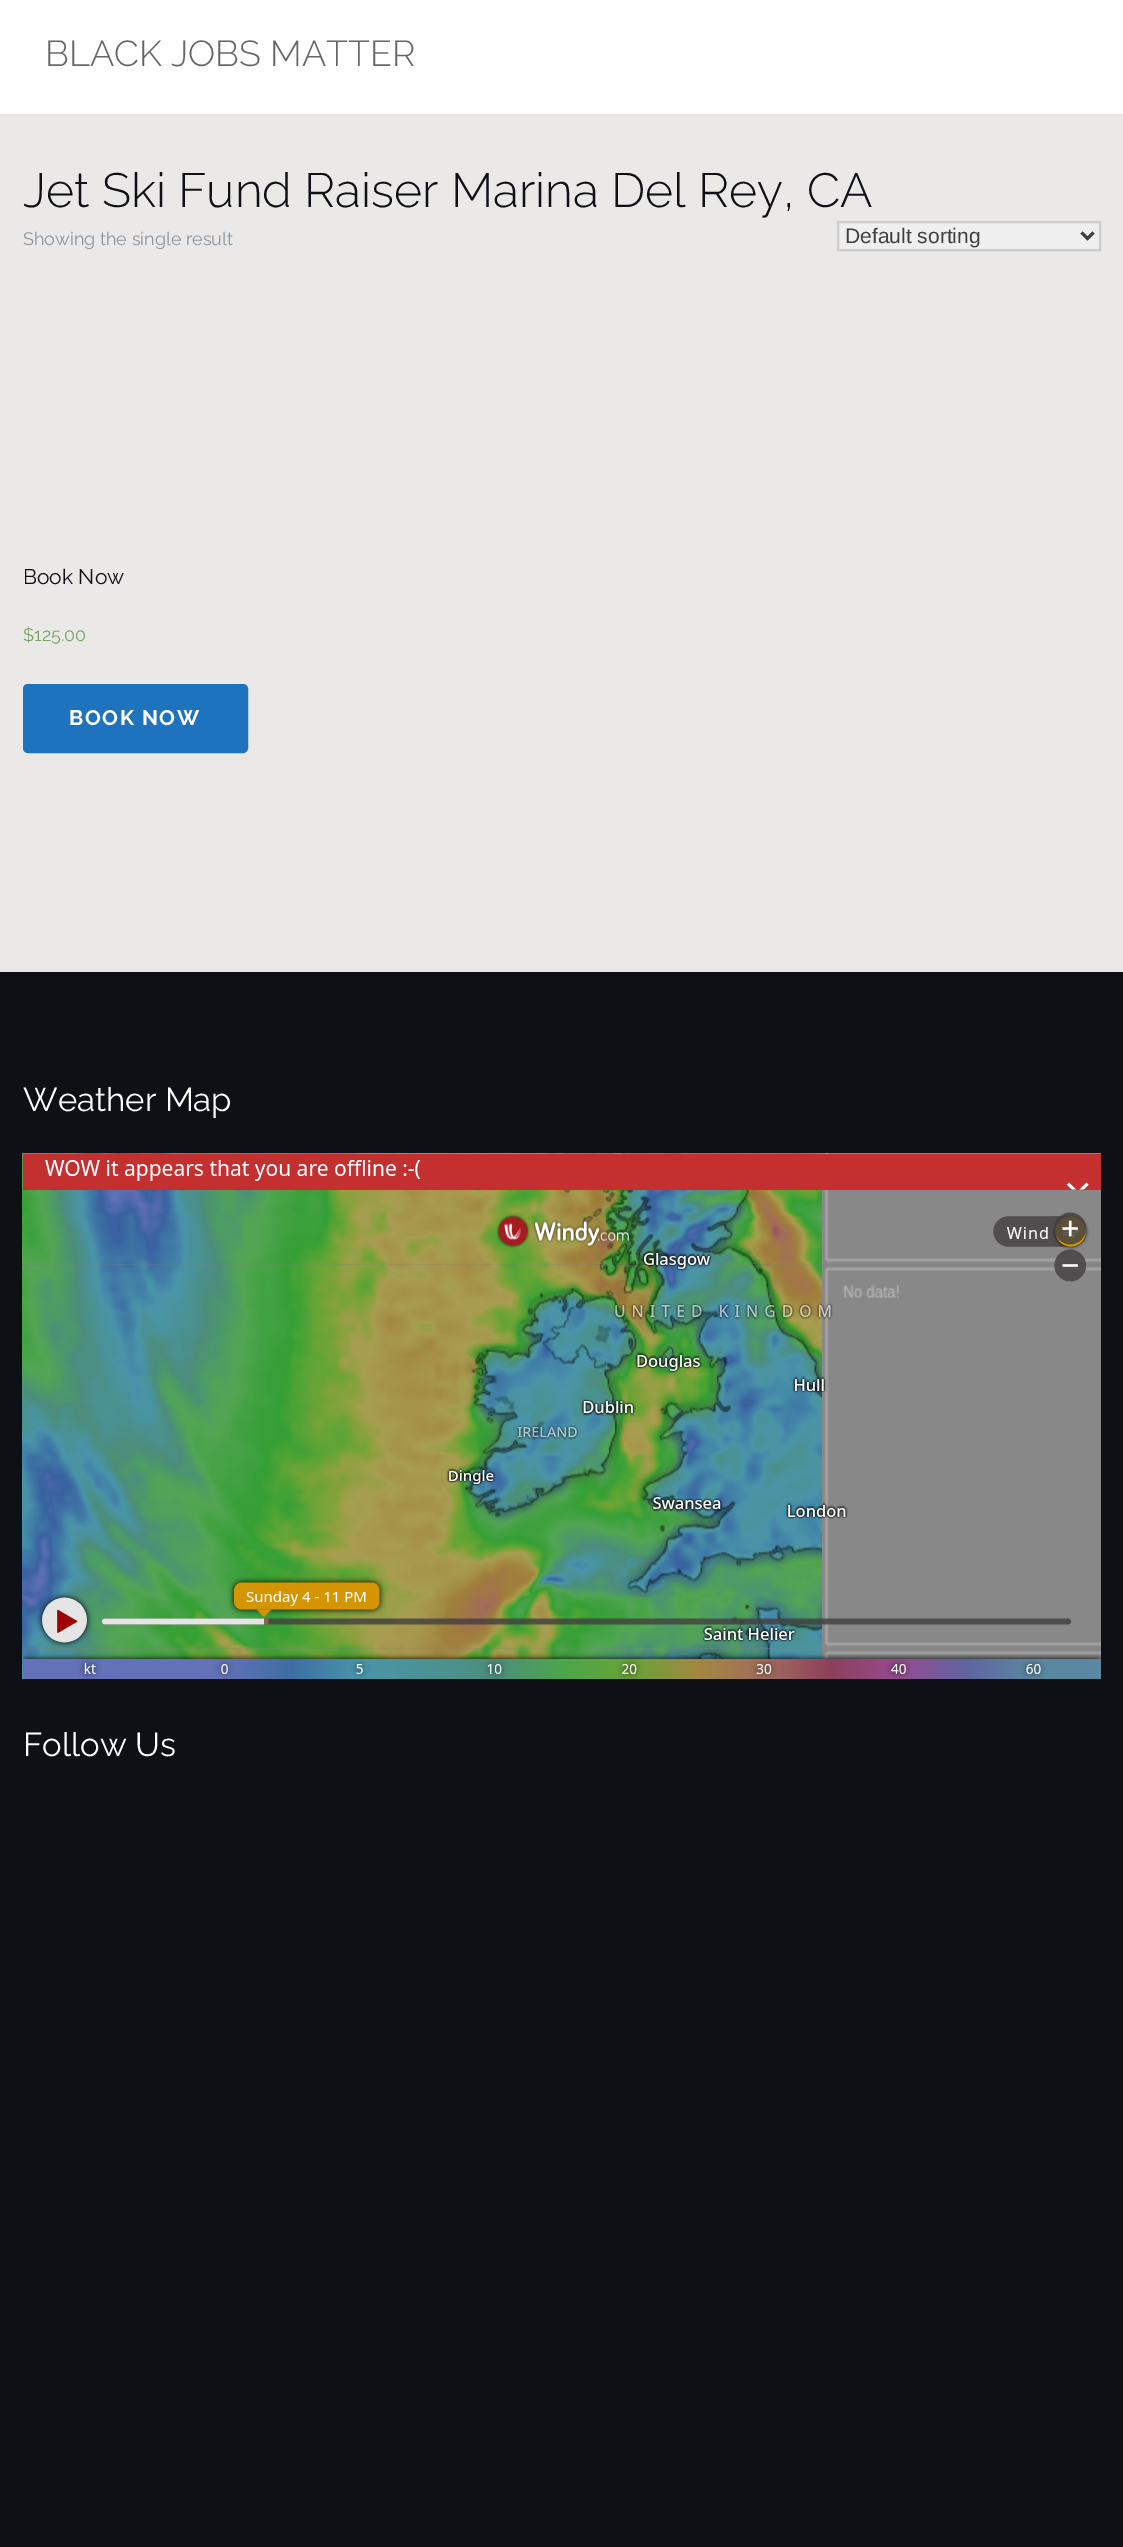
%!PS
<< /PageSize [1123 2547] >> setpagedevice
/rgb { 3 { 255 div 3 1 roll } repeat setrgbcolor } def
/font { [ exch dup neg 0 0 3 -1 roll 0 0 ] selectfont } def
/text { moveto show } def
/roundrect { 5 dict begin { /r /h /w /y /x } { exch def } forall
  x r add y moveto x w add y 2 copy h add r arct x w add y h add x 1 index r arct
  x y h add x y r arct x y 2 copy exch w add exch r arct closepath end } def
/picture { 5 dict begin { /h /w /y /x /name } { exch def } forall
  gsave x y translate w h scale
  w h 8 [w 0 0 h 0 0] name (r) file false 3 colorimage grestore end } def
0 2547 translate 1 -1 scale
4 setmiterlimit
234 233 232 rgb
0 0 1123 2547 rectfill
255 255 255 rgb
0 0 1123 114 rectfill
230 230 230 rgb
0 114 1123 2 rectfill
239 239 239 rgb
838 222 moveto 262 0 rlineto 0 28 rlineto -262 0 rlineto closepath gsave fill grestore
204 204 204 rgb
2 setlinewidth
stroke
64 64 64 rgb
3 setlinewidth
1081.5 232.5 moveto 6 6 rlineto 6 -6 rlineto stroke
30 115 190 rgb
24.5 685.5 222 66 3.5 roundrect gsave fill grestore
stroke
14 16 21 rgb
0 972 1123 1575 rectfill
(img_01.rgb) 22 1153 1079 526 picture
/Raleway-Light 36 font
102 102 102 rgb
(BLACK JOBS MATTER) 45 66 text
/Raleway-Light 48 font
14 16 21 rgb
(Jet Ski Fund Raiser Marina Del Rey, CA) 23 207 text
/Raleway-Regular 18 font
140 151 158 rgb
(Showing the single result) 23 245 text
/LiberationSans-Regular 21 font
64 64 64 rgb
(Default sorting) 845 243 text
/Raleway-Regular 21 font
14 16 21 rgb
(Book Now) 23 584 text
/Raleway-Regular 18 font
119 164 100 rgb
($125.00) 23 641 text
/Raleway-Bold 21 font
255 255 255 rgb
69 725 moveto 1.5 0 (BOOK NOW) ashow
/Raleway-Regular 33 font
(Weather Map) 23 1111 text
(Follow Us) 23 1756 text
showpage
